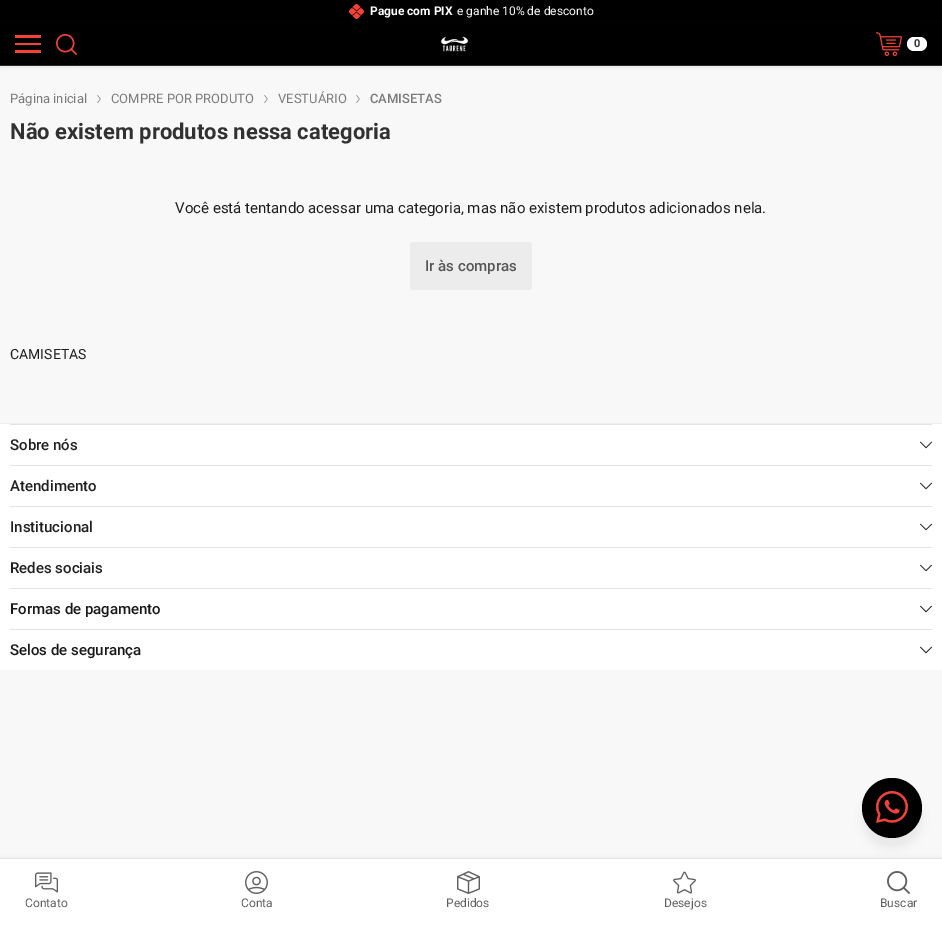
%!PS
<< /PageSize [942 928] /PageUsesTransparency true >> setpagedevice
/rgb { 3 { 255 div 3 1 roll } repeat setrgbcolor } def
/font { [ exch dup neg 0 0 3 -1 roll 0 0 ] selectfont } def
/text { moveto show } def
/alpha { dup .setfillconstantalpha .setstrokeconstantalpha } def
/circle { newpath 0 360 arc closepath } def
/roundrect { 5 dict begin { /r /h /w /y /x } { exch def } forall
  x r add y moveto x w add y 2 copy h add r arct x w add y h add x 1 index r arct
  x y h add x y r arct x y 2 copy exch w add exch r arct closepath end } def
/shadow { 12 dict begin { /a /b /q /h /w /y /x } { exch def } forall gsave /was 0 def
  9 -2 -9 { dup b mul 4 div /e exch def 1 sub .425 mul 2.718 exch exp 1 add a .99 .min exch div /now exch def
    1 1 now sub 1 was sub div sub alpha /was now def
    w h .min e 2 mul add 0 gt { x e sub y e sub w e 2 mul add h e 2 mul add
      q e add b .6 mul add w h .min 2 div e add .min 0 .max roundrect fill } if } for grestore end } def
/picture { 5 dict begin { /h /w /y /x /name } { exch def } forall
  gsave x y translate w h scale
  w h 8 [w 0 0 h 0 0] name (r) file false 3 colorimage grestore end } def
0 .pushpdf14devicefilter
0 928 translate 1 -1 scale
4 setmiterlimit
248 248 248 rgb
0 0 942 928 rectfill
0 0 0 rgb
0 0 942 23 rectfill
(img_01.rgb) 349 4 15 15 picture
82 82 82 rgb
0 24 942 43 0 2 0.13 shadow
0 0 0 rgb
0 23 942 42 rectfill
45 45 45 rgb
0 65 942 1 rectfill
244 67 54 rgb
15 50 26 3 rectfill
15 43 26 2 rectfill
15 35 26 3 rectfill
(img_02.rgb) 56 34 21 21 picture
(img_03.rgb) 441 36 27 16 picture
(img_04.rgb) 876 32 26 24 picture
255 255 255 rgb
907 37 20 14 7 roundrect fill
(img_05.rgb) 97 95 4 8 picture
(img_05.rgb) 264 95 4 8 picture
(img_05.rgb) 356 95 4 8 picture
236 236 236 rgb
410 242 122 48 3 roundrect fill
239 239 239 rgb
0 423 942 1 rectfill
255 255 255 rgb
0 424 942 246 rectfill
226 226 226 rgb
10 424 922 1 rectfill
(img_06.rgb) 920 441 12 8 picture
10 465 922 1 rectfill
(img_06.rgb) 920 482 12 8 picture
10 506 922 1 rectfill
(img_06.rgb) 920 523 12 8 picture
10 547 922 1 rectfill
(img_06.rgb) 920 564 12 8 picture
10 588 922 1 rectfill
(img_07.rgb) 920 605 12 8 picture
10 629 922 1 rectfill
(img_07.rgb) 920 646 12 8 picture
103 103 103 rgb
862 788 60 60 30 4 0.1 shadow
0 0 0 rgb
892 808 30 circle fill
(img_08.rgb) 876 791 32 32 picture
82 82 82 rgb
0 858 942 70 0 2 0.08 shadow
255 255 255 rgb
0 859 942 69 rectfill
226 226 226 rgb
0 858 942 1 rectfill
(img_09.rgb) 35 872 23 21 picture
(img_10.rgb) 245 871 23 23 picture
(img_11.rgb) 457 871 23 23 picture
(img_12.rgb) 673 871 23 23 picture
(img_13.rgb) 887 871 23 23 picture
/Roboto-Bold 12 font
255 255 255 rgb
(Pague com PIX) 370 15 text
/Roboto-Regular 12 font
(e ganhe 10% de desconto) 457 15 text
/Roboto-Bold 11 font
49 49 49 rgb
(0) 914 47 text
/Roboto-Regular 13 font
123 123 123 rgb
(Página inicial) 10 103 text
(COMPRE POR PRODUTO) 111 103 text
(VESTUÁRIO) 278 103 text
/Roboto-Medium 13 font
(CAMISETAS) 370 103 text
/Roboto-Bold 22 font
49 49 49 rgb
(Não existem produtos nessa categoria) 10 139 text
/Roboto-Regular 15 font
32 31 31 rgb
(Você está tentando acessar uma categoria, mas não existem produtos adicionados nela.) 175 213 text
/Roboto-Medium 15 font
85 85 85 rgb
(Ir às compras) 425 271 text
/Roboto-Regular 14 font
32 31 31 rgb
(CAMISETAS) 10 359 text
/Roboto-Medium 15 font
(Sobre nós) 10 450 text
(Atendimento) 10 491 text
(Institucional) 10 532 text
(Redes sociais) 10 573 text
24 24 24 rgb
(Formas de pagamento) 10 614 text
(Selos de segurança) 10 655 text
/Roboto-Regular 12 font
96 96 96 rgb
(Contato) 25 907 text
(Conta) 241 907 text
(Pedidos) 446 907 text
(Desejos) 664 907 text
(Buscar) 880 907 text
.poppdf14devicefilter showpage
